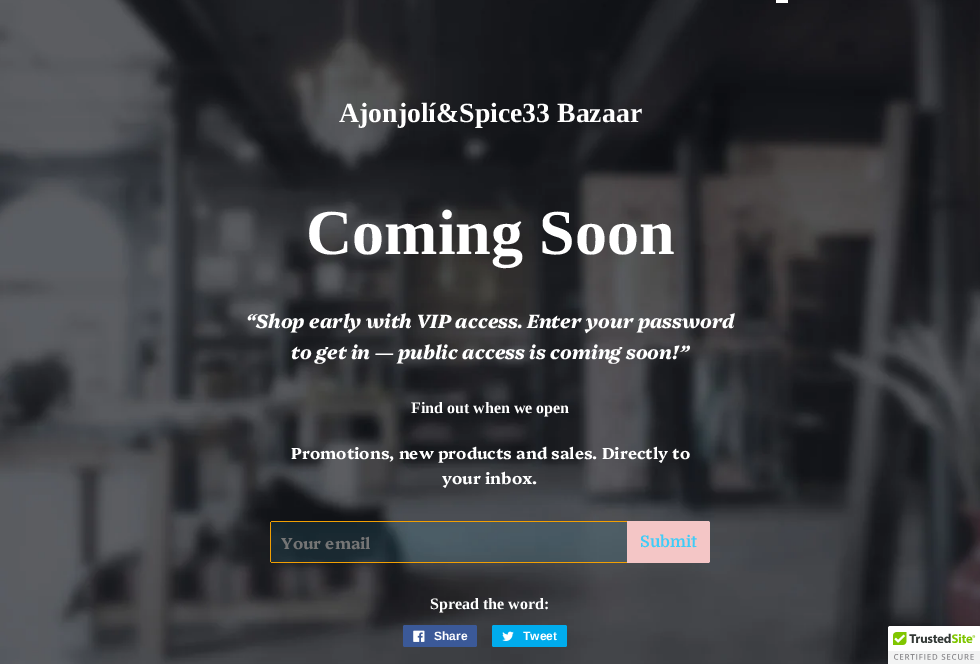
%!PS
<< /PageSize [980 664] /PageUsesTransparency true >> setpagedevice
/rgb { 3 { 255 div 3 1 roll } repeat setrgbcolor } def
/font { [ exch dup neg 0 0 3 -1 roll 0 0 ] selectfont } def
/text { moveto show } def
/alpha { dup .setfillconstantalpha .setstrokeconstantalpha } def
/roundrect { 5 dict begin { /r /h /w /y /x } { exch def } forall
  x r add y moveto x w add y 2 copy h add r arct x w add y h add x 1 index r arct
  x y h add x y r arct x y 2 copy exch w add exch r arct closepath end } def
/shadow { 12 dict begin { /a /b /q /h /w /y /x } { exch def } forall gsave /was 0 def
  9 -2 -9 { dup b mul 4 div /e exch def 1 sub .425 mul 2.718 exch exp 1 add a .99 .min exch div /now exch def
    1 1 now sub 1 was sub div sub alpha /was now def
    w h .min e 2 mul add 0 gt { x e sub y e sub w e 2 mul add h e 2 mul add
      q e add b .6 mul add w h .min 2 div e add .min 0 .max roundrect fill } if } for grestore end } def
/picture { 5 dict begin { /h /w /y /x /name } { exch def } forall
  gsave x y translate w h scale
  w h 8 [w 0 0 h 0 0] name (r) file false 3 colorimage grestore end } def
0 .pushpdf14devicefilter
0 664 translate 1 -1 scale
4 setmiterlimit
255 255 255 rgb
0 0 980 664 rectfill
(img_01.rgb) 0 0 980 664 picture
776 0 12 3 rectfill
0.1 alpha
63 204 247 rgb
272 521 moveto 355 0 rlineto 0 42 rlineto -355 0 rlineto -1 0 -2 -1 -2 -2 rcurveto 0 -38 rlineto 0 -1 1 -2 2 -2 rcurveto closepath fill
1 alpha
241 159 3 rgb
271 521 356 1 rectfill
271 562 356 1 rectfill
270 522 1 40 rectfill
244 198 198 rgb
627 521 moveto 81 0 rlineto 1 0 2 1 2 2 rcurveto 0 38 rlineto 0 1 -1 2 -2 2 rcurveto -81 0 rlineto closepath fill
59 89 152 rgb
403 625 74 22 2 roundrect fill
(img_02.rgb) 413 630 12 12 picture
0 172 237 rgb
492 625 75 22 2 roundrect fill
(img_03.rgb) 502 631 12 10 picture
0 0 0 rgb
888 626 92 38 2 2.5 0.2 shadow
255 255 255 rgb
890 626 moveto 90 0 rlineto 0 38 rlineto -92 0 rlineto 0 -36 rlineto 0 -1 1 -2 2 -2 rcurveto closepath fill
(img_04.rgb) 888 626 92 38 picture
/LiberationSerif-Bold 27.75 font
(Ajonjolí&Spice33 Bazaar) 339 122 text
/LiberationSerif-Bold 64 font
(Coming Soon) 306 254 text
/Platypi-ExtraBoldItalic 19.2 font
(“Shop early with VIP access. Enter your password) 246 328 text
(to get in — public access is coming soon!”) 291 359 text
/LiberationSerif-Bold 16 font
(Find out when we open) 411 413 text
/Platypi-Bold 16 font
(Promotions, new products and sales. Directly to) 291 459 text
(your inbox.) 442 484 text
117 117 117 rgb
(Your email) 281 549 text
/Domine-Bold 16 font
63 204 247 rgb
(Submit) 640 547 text
/LiberationSerif-Bold 16 font
255 255 255 rgb
(Spread the word:) 430 609 text
/LiberationSans-Bold 12 font
(Share) 434 640 text
(Tweet) 523 640 text
.poppdf14devicefilter showpage
